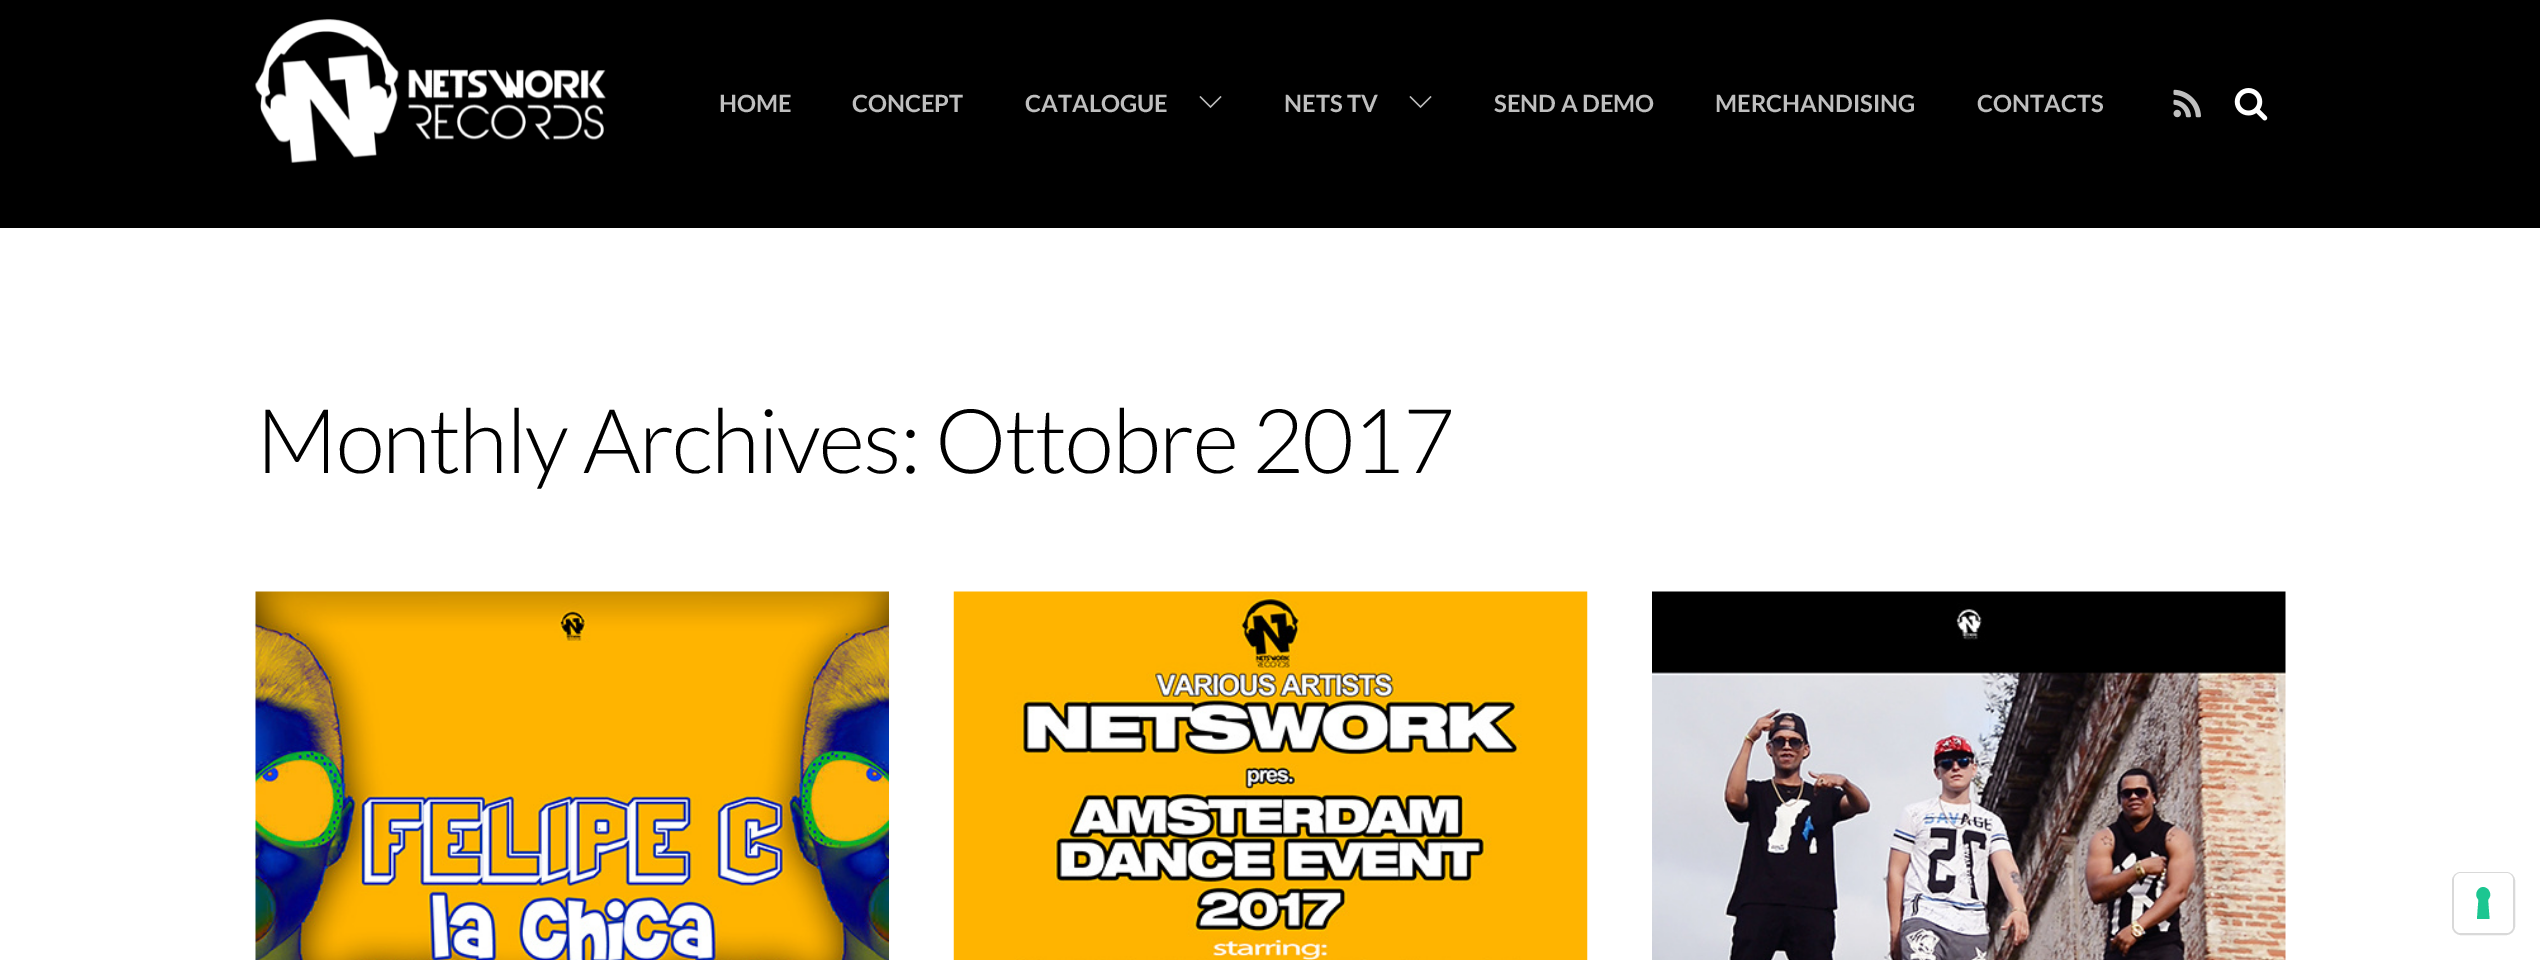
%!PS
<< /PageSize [2540 960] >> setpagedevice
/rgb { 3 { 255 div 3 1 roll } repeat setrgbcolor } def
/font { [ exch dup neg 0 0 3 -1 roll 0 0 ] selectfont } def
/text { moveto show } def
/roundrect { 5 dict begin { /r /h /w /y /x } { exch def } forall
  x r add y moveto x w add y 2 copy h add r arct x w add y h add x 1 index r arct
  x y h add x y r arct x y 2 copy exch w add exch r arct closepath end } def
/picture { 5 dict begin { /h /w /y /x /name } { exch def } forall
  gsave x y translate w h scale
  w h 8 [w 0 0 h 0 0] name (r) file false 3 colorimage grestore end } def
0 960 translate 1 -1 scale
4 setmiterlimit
255 255 255 rgb
0 0 2540 960 rectfill
0 0 0 rgb
0 0 2540 228 rectfill
(img_01.rgb) 255 19 351 144 picture
191 191 191 rgb
1221.5 97 moveto -11 11 rlineto -11 -11 rlineto 1 -1 rlineto 10 10 rlineto 10 -10 rlineto closepath fill
1431.5 97 moveto -11 11 rlineto -11 -11 rlineto 1 -1 rlineto 10 10 rlineto 10 -10 rlineto closepath fill
(img_02.rgb) 2173 89 28 29 picture
(img_03.rgb) 2234 88 34 33 picture
(img_04.rgb) 255 591 634 369 picture
(img_05.rgb) 953 591 635 369 picture
(img_06.rgb) 1652 591 634 369 picture
217 217 217 rgb
2 setlinewidth
2453 873 61 61 8 roundrect stroke
255 255 255 rgb
2454 873 59 60 7 roundrect fill
28 198 145 rgb
2483 887 moveto 6.5 0.5 9.5 8.5 5 12.5 rcurveto 1.5 19.5 rlineto -12.5 0 rlineto 1.5 -19.5 rlineto -4.5 -4 -1.5 -12 4.5 -12.5 rcurveto closepath eofill
/Lato-Bold 23.75 font
191 191 191 rgb
(HOME) 719 112 text
(CONCEPT) 852 112 text
(CATALOGUE) 1025 112 text
(NETS TV) 1284 112 text
(SEND A DEMO) 1494 112 text
(MERCHANDISING) 1715 112 text
(CONTACTS) 1977 112 text
/Lato-Light 89.6 font
0 0 0 rgb
256 473 moveto -1.8 0 (Monthly Archives: Ottobre 2017) ashow
showpage
